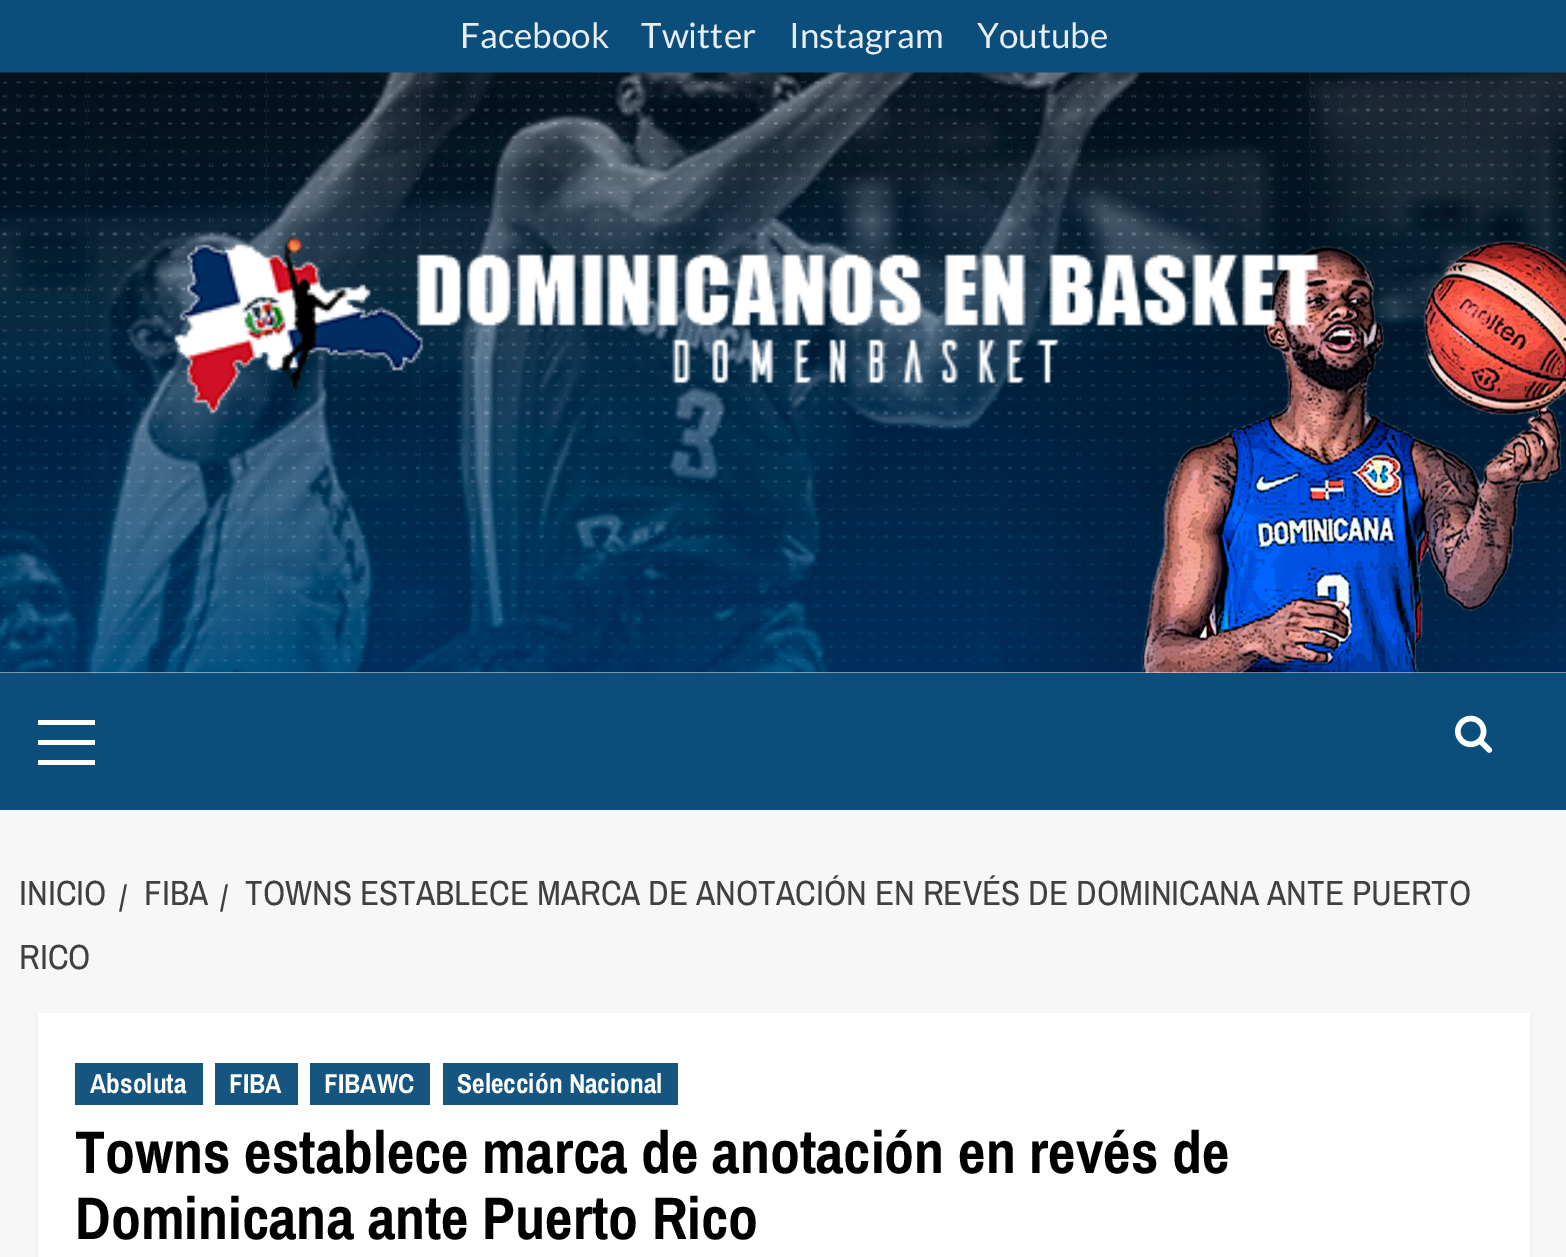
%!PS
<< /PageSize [1566 1257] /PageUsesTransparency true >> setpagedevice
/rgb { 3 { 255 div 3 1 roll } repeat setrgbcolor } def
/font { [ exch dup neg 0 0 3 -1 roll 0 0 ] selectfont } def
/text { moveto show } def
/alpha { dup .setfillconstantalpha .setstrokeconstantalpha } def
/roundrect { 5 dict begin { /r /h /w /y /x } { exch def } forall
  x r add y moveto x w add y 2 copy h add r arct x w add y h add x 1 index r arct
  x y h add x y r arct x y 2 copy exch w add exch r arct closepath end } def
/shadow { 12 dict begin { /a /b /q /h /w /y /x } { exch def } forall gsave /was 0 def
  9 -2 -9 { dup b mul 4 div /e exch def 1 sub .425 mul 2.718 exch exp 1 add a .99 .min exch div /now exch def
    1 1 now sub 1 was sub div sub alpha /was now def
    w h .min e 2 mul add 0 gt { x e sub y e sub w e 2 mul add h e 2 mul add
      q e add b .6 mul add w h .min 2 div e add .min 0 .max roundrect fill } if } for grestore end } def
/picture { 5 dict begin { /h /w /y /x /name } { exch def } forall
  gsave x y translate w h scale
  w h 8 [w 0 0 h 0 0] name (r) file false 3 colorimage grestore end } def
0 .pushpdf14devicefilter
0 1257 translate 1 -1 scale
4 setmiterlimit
247 247 247 rgb
0 0 1566 1257 rectfill
12 78 123 rgb
0 0 1566 73 rectfill
(img_01.rgb) 0 72 1566 601 picture
(img_02.rgb) 174 237 1145 177 picture
0 673 1566 137 rectfill
255 255 255 rgb
38 740 57 5 rectfill
38 720 57 5 rectfill
38 760 57 5 rectfill
(img_03.rgb) 1455 715 38 38 picture
0 0 0 rgb
38 1015 1492 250 0 2.5 0.05 shadow
255 255 255 rgb
38 1013 1492 244 rectfill
22 85 128 rgb
75 1063 128 42 rectfill
215 1063 83 42 rectfill
310 1063 120 42 rectfill
443 1063 235 42 rectfill
/Lato-Regular 35 font
231 237 242 rgb
(Facebook) 460 48 text
(Twitter) 641 48 text
(Instagram) 789 48 text
(Youtube) 977 48 text
/ArchivoNarrow-Regular 35 font
64 64 64 rgb
(/) 220 910 text
(TOWNS ESTABLECE MARCA DE ANOTACIÓN EN REVÉS DE DOMINICANA ANTE PUERTO) 245 905 text
(RICO) 19 969 text
(INICIO) 19 905 text
(/) 119 910 text
(FIBA) 144 905 text
/ArchivoNarrow-Bold 27.5 font
255 255 255 rgb
(Absoluta) 90 1093 text
(FIBA) 229 1093 text
(FIBAWC) 324 1093 text
(Selección Nacional) 457 1093 text
/ArchivoNarrow-Bold 60 font
0 0 0 rgb
(Towns establece marca de anotación en revés de) 75 1173 text
(Dominicana ante Puerto Rico) 75 1239 text
.poppdf14devicefilter showpage
